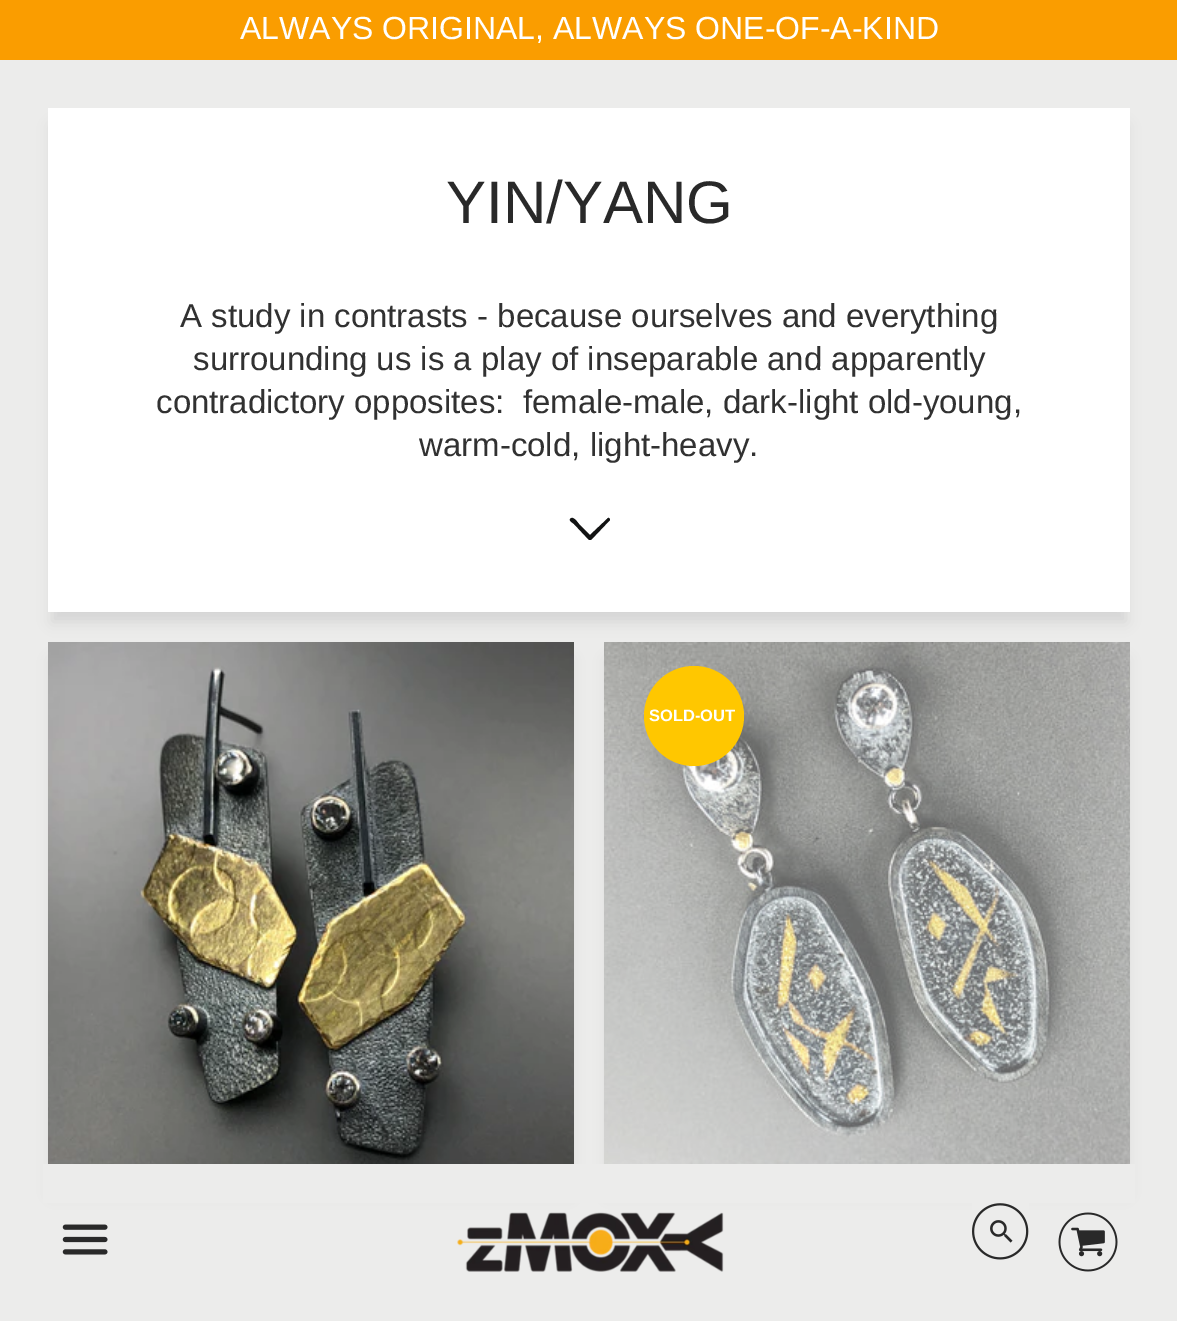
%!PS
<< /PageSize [1177 1321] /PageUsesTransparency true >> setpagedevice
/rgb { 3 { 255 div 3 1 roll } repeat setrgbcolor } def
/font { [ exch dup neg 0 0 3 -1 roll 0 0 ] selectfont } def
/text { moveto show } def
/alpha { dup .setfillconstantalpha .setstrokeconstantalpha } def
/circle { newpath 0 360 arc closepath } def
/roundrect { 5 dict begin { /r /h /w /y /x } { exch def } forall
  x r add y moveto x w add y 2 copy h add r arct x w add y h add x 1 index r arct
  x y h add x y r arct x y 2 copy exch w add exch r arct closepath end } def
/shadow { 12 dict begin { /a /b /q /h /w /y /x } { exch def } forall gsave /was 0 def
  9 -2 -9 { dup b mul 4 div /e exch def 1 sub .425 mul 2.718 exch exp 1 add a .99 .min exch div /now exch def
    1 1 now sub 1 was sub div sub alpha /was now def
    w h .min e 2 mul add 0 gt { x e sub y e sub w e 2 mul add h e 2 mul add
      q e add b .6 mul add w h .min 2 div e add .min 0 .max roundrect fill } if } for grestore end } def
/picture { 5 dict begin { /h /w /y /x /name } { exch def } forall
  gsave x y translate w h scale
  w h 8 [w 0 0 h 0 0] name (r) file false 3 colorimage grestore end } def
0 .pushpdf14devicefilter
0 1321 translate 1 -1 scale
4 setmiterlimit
236 236 235 rgb
0 0 1177 1321 rectfill
250 157 0 rgb
0 0 1177 60 rectfill
163 163 163 rgb
52 660 518 534 0 7 0.32 shadow
608 660 518 534 0 7 0.32 shadow
236 236 235 rgb
43 1164 1092 39 rectfill
(img_01.rgb) 62 1224 46 31 picture
(img_02.rgb) 457 1212 267 60 picture
(img_03.rgb) 972 1203 57 57 picture
(img_04.rgb) 1058 1212 60 60 picture
163 163 163 rgb
52 126 1074 496 0 7 0.32 shadow
255 255 255 rgb
48 108 1082 504 rectfill
18 19 19 rgb
607 519 moveto -17 16 rlineto -11 -11 rlineto -1 -1 -6 -9 -9 -5 rcurveto -1 2 3 4 4 5 rcurveto 15 16 rlineto 2 0 rlineto 19 -20 rlineto 0 -2 -2 -3 -3 -1 rcurveto closepath fill
(img_05.rgb) 48 642 526 522 picture
255 255 255 rgb
604 642 526 522 rectfill
(img_06.rgb) 604 642 526 522 picture
255 199 0 rgb
694 716 50 circle fill
/LiberationSans-Regular 32 font
255 255 255 rgb
(ALWAYS ORIGINAL, ALWAYS ONE-OF-A-KIND) 240 39 text
/LiberationSans-Regular 60 font
41 41 41 rgb
(YIN/YANG) 446 223 text
/LiberationSans-Regular 33 font
49 49 49 rgb
(A study in contrasts - because ourselves and everything) 180 327 text
(surrounding us is a play of inseparable and apparently) 193 370 text
(contradictory opposites:  female-male, dark-light old-young,) 156 413 text
(warm-cold, light-heavy.) 419 456 text
/LiberationSans-Bold 16.5 font
255 255 255 rgb
(SOLD-OUT) 649 721 text
.poppdf14devicefilter showpage
